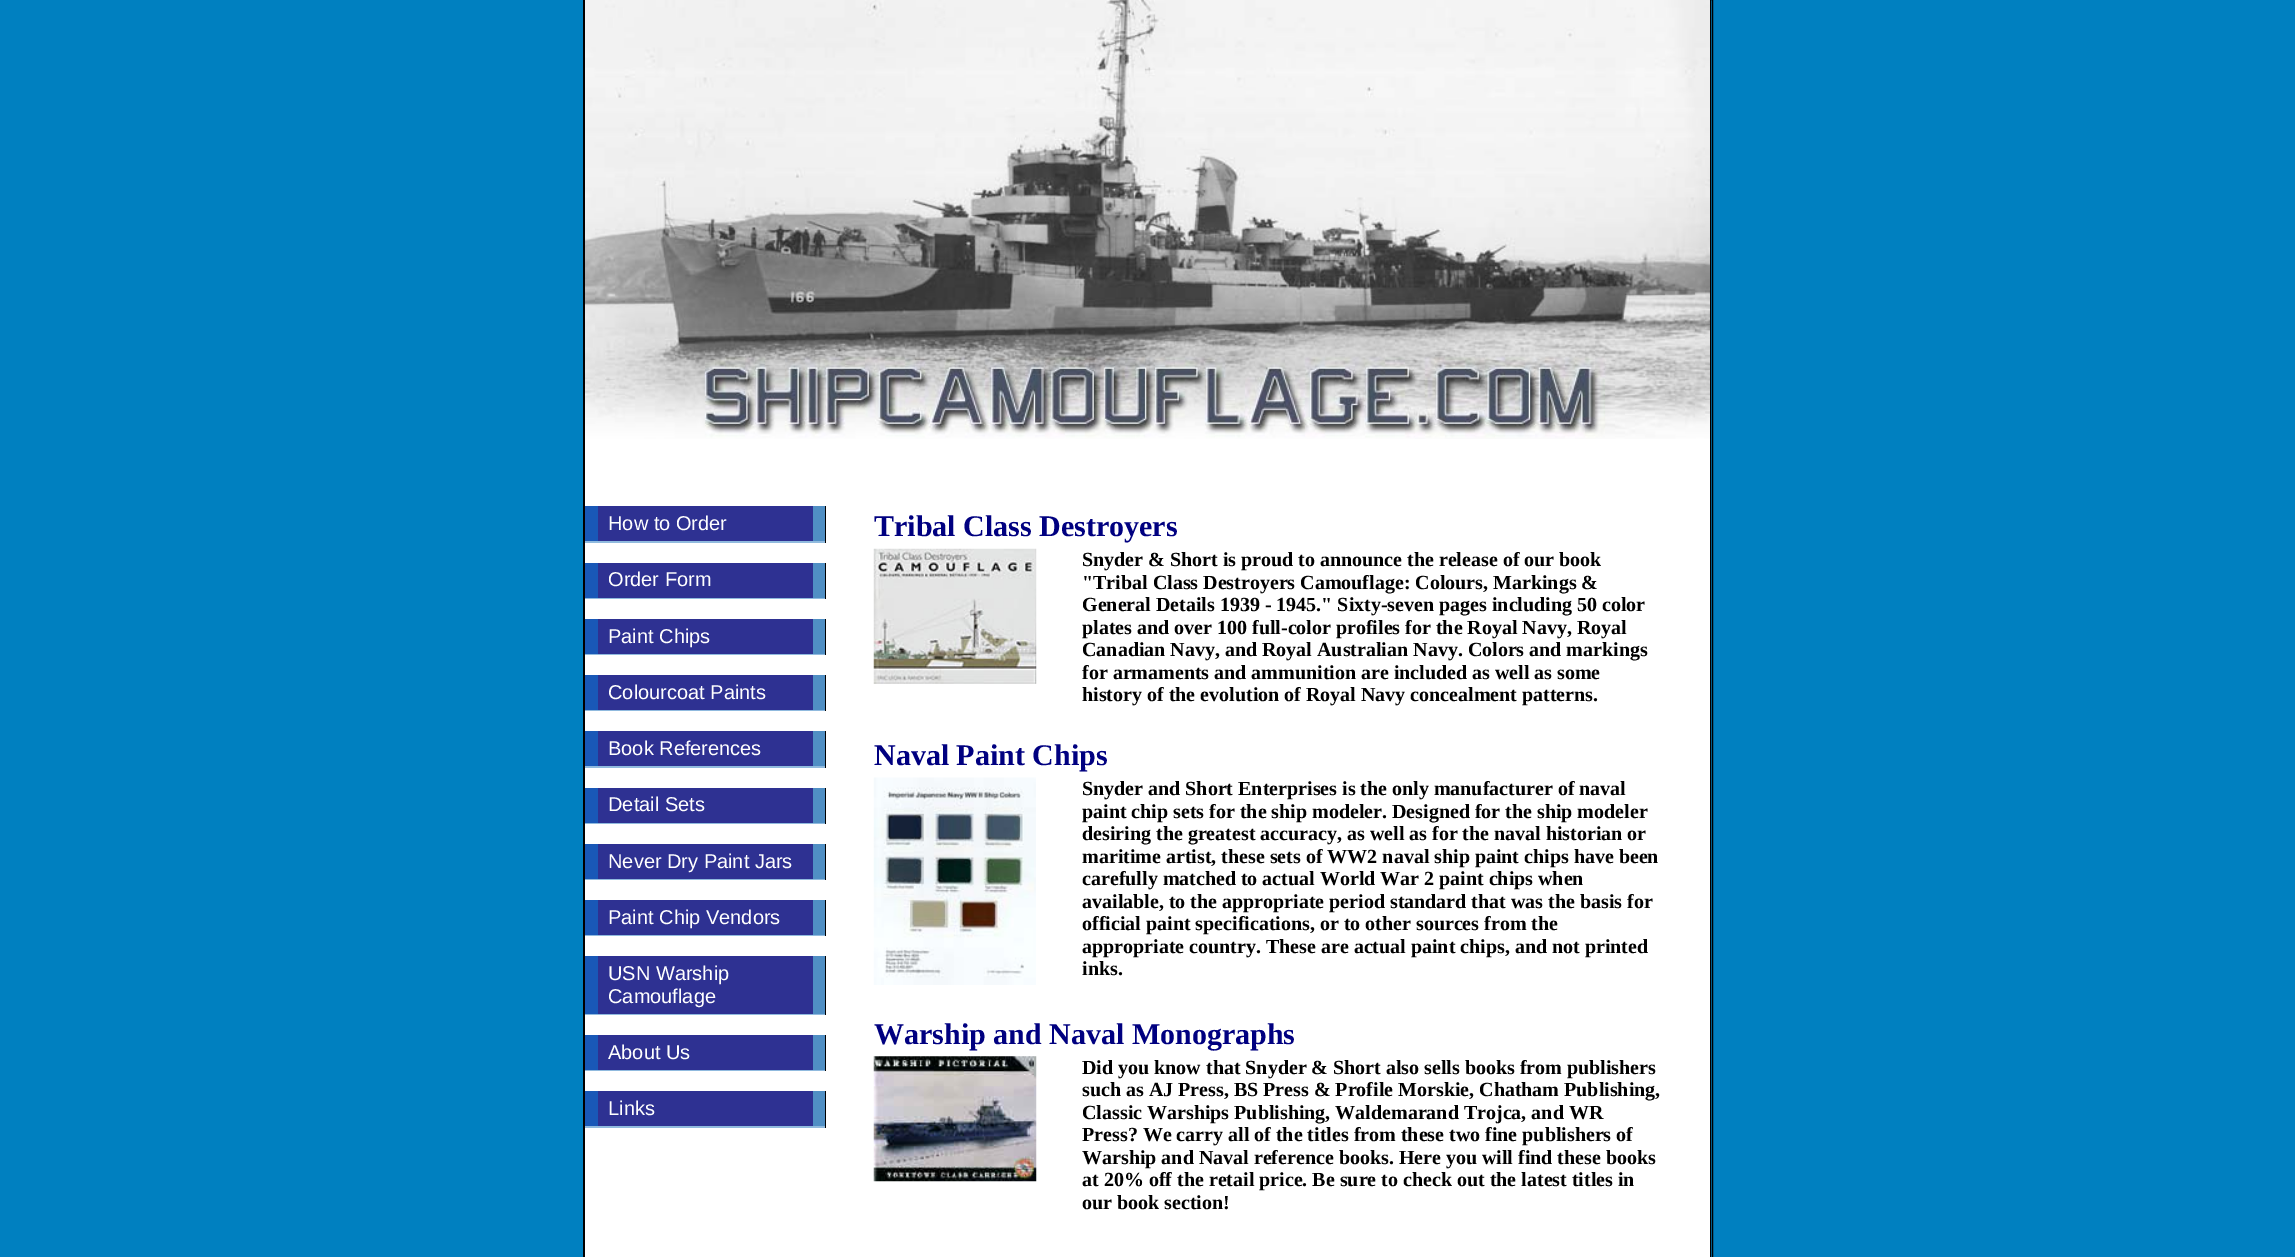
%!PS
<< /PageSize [2295 1257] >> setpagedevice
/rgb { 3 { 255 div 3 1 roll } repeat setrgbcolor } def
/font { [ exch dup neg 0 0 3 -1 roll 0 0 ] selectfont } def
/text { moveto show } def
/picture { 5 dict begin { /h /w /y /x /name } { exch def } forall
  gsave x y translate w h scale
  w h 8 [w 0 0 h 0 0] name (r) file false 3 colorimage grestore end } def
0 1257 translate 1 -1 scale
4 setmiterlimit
0 128 192 rgb
0 0 2295 1257 rectfill
0 0 0 rgb
583.5 -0.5 1129 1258 rectstroke
584.5 -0.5 1126 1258 rectstroke
255 255 255 rgb
585 439 1125 818 rectfill
(img_01.rgb) 585 0 1125 439 picture
144 186 222 rgb
585 541 240 2 rectfill
0 0 0 rgb
825 506 1 37 rectfill
46 49 146 rgb
598 506 215 35 rectfill
80 143 196 rgb
813 506 12 35 rectfill
25 88 183 rgb
585 506 13 35 rectfill
144 186 222 rgb
585 598 240 1 rectfill
0 0 0 rgb
825 563 1 36 rectfill
46 49 146 rgb
598 563 215 35 rectfill
80 143 196 rgb
813 563 12 35 rectfill
25 88 183 rgb
585 563 13 35 rectfill
144 186 222 rgb
585 654 240 1 rectfill
0 0 0 rgb
825 619 1 36 rectfill
46 49 146 rgb
598 619 215 35 rectfill
80 143 196 rgb
813 619 12 35 rectfill
25 88 183 rgb
585 619 13 35 rectfill
144 186 222 rgb
585 710 240 1 rectfill
0 0 0 rgb
825 675 1 36 rectfill
46 49 146 rgb
598 675 215 35 rectfill
80 143 196 rgb
813 675 12 35 rectfill
25 88 183 rgb
585 675 13 35 rectfill
144 186 222 rgb
585 766 240 2 rectfill
0 0 0 rgb
825 731 1 37 rectfill
46 49 146 rgb
598 731 215 35 rectfill
80 143 196 rgb
813 731 12 35 rectfill
25 88 183 rgb
585 731 13 35 rectfill
144 186 222 rgb
585 823 240 1 rectfill
0 0 0 rgb
825 788 1 36 rectfill
46 49 146 rgb
598 788 215 35 rectfill
80 143 196 rgb
813 788 12 35 rectfill
25 88 183 rgb
585 788 13 35 rectfill
144 186 222 rgb
585 879 240 1 rectfill
0 0 0 rgb
825 844 1 36 rectfill
46 49 146 rgb
598 844 215 35 rectfill
80 143 196 rgb
813 844 12 35 rectfill
25 88 183 rgb
585 844 13 35 rectfill
144 186 222 rgb
585 935 240 1 rectfill
0 0 0 rgb
825 900 1 36 rectfill
46 49 146 rgb
598 900 215 35 rectfill
80 143 196 rgb
813 900 12 35 rectfill
25 88 183 rgb
585 900 13 35 rectfill
144 186 222 rgb
585 1014 240 1 rectfill
0 0 0 rgb
825 956 1 59 rectfill
46 49 146 rgb
598 956 215 58 rectfill
80 143 196 rgb
813 956 12 58 rectfill
25 88 183 rgb
585 956 13 58 rectfill
144 186 222 rgb
585 1070 240 1 rectfill
0 0 0 rgb
825 1035 1 36 rectfill
46 49 146 rgb
598 1035 215 35 rectfill
80 143 196 rgb
813 1035 12 35 rectfill
25 88 183 rgb
585 1035 13 35 rectfill
144 186 222 rgb
585 1126 240 2 rectfill
0 0 0 rgb
825 1091 1 37 rectfill
46 49 146 rgb
598 1091 215 35 rectfill
80 143 196 rgb
813 1091 12 35 rectfill
25 88 183 rgb
585 1091 13 35 rectfill
(img_02.rgb) 873 548 164 136 picture
(img_03.rgb) 873 777 163 208 picture
(img_04.rgb) 873 1056 164 126 picture
/LiberationSans-Regular 20 font
255 255 255 rgb
(How to Order) 608 530 text
(Order Form) 608 586 text
(Paint Chips) 608 643 text
(Colourcoat Paints) 608 699 text
(Book References) 608 755 text
(Detail Sets) 608 811 text
(Never Dry Paint Jars) 608 868 text
(Paint Chip Vendors) 608 924 text
(USN Warship) 608 980 text
(Camouflage) 608 1003 text
(About Us) 608 1059 text
(Links) 608 1115 text
/LiberationSerif-Bold 30 font
0 0 128 rgb
(Tribal Class Destroyers) 874 536 text
/LiberationSerif-Bold 20 font
0 0 0 rgb
(Snyder & Short is proud to announce the release of our book) 1082 566 text
("Tribal Class Destroyers Camouflage: Colours, Markings &) 1082 589 text
(General Details 1939 - 1945." Sixty-seven pages including 50 color) 1082 611 text
(plates and over 100 full-color profiles for the Royal Navy, Royal) 1082 634 text
(Canadian Navy, and Royal Australian Navy. Colors and markings) 1082 656 text
(for armaments and ammunition are included as well as some) 1082 679 text
(history of the evolution of Royal Navy concealment patterns.) 1082 701 text
/LiberationSerif-Bold 30 font
0 0 128 rgb
(Naval Paint Chips) 874 765 text
/LiberationSerif-Bold 20 font
0 0 0 rgb
(Snyder and Short Enterprises is the only manufacturer of naval) 1082 795 text
(paint chip sets for the ship modeler. Designed for the ship modeler) 1082 818 text
(desiring the greatest accuracy, as well as for the naval historian or) 1082 840 text
(maritime artist, these sets of WW2 naval ship paint chips have been) 1082 863 text
(carefully matched to actual World War 2 paint chips when) 1082 885 text
(available, to the appropriate period standard that was the basis for) 1082 908 text
(official paint specifications, or to other sources from the) 1082 930 text
(appropriate country. These are actual paint chips, and not printed) 1082 953 text
(inks.) 1082 975 text
/LiberationSerif-Bold 30 font
0 0 128 rgb
(Warship and Naval Monographs) 874 1044 text
/LiberationSerif-Bold 20 font
0 0 0 rgb
(Did you know that Snyder & Short also sells books from publishers) 1082 1074 text
(such as AJ Press, BS Press & Profile Morskie, Chatham Publishing,) 1082 1096 text
(Classic Warships Publishing, Waldemarand Trojca, and WR) 1082 1119 text
(Press? We carry all of the titles from these two fine publishers of) 1082 1141 text
(Warship and Naval reference books. Here you will find these books) 1082 1164 text
(at 20% off the retail price. Be sure to check out the latest titles in) 1082 1186 text
(our book section!) 1082 1209 text
showpage
